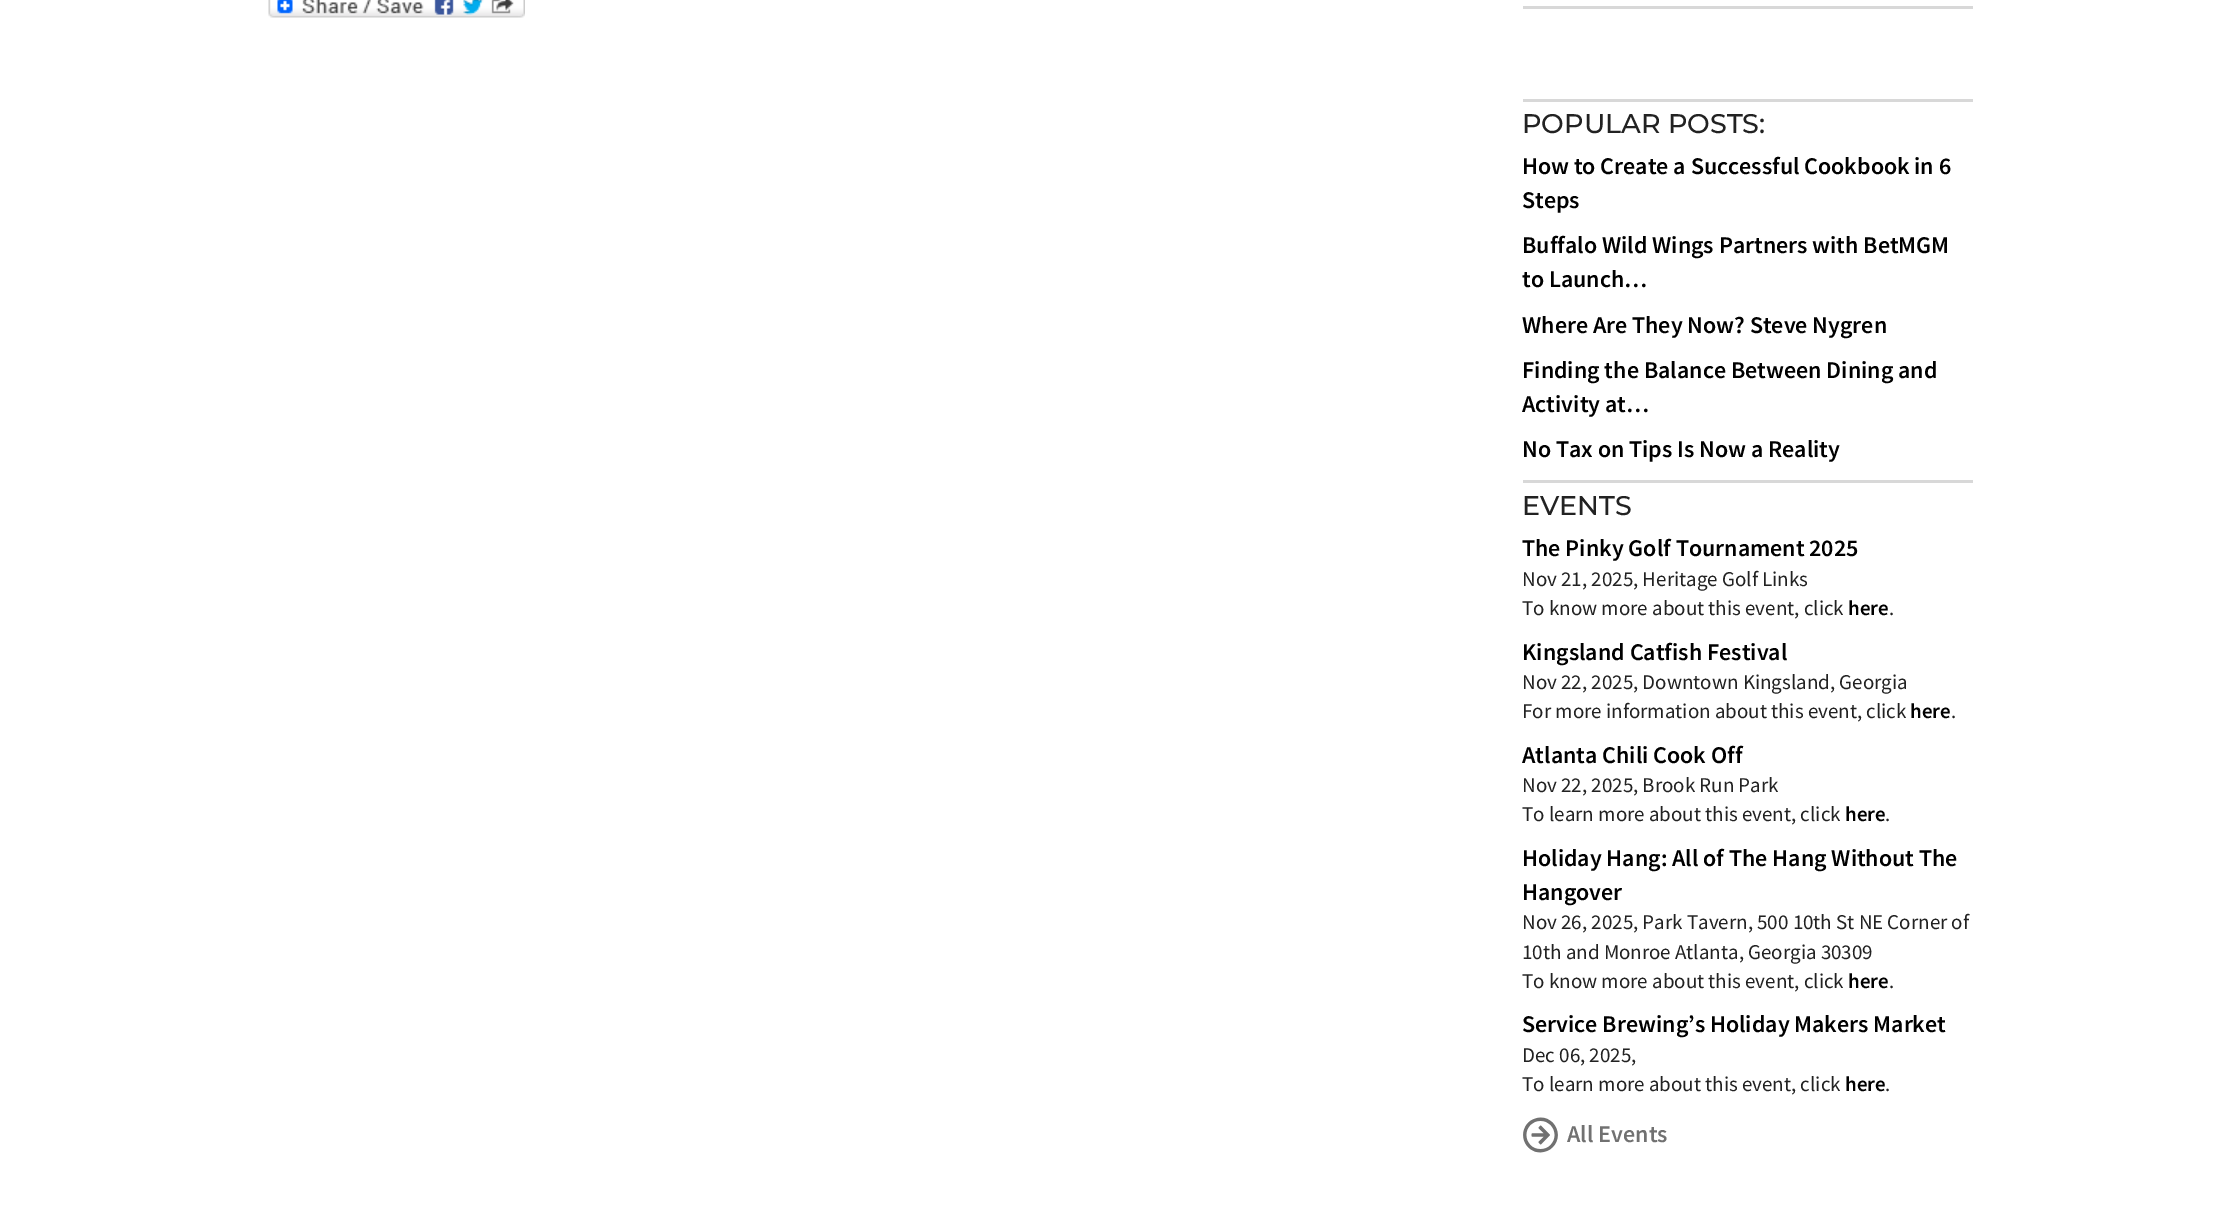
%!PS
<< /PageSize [2233 1216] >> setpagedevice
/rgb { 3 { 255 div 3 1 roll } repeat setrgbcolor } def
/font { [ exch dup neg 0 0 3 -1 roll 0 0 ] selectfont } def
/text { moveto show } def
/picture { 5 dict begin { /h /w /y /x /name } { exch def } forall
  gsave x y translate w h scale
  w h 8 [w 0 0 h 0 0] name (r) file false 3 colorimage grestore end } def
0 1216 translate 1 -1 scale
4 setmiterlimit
255 255 255 rgb
0 0 2233 1216 rectfill
(img_01.rgb) 268 0 257 18 picture
216 216 216 rgb
1523 6 450 3 rectfill
1523 99 450 3 rectfill
1523 480 450 3 rectfill
(img_02.rgb) 1523 1117 35 36 picture
/Montserrat-Medium 27 font
34 34 34 rgb
(POPULAR POSTS:) 1522 133 text
/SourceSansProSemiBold-SemiBold 24 font
0 0 0 rgb
(How to Create a Successful Cookbook in 6) 1522 174 text
(Steps) 1522 208 text
(Buffalo Wild Wings Partners with BetMGM) 1522 253 text
(to Launch…) 1522 287 text
(Where Are They Now? Steve Nygren) 1522 333 text
(Finding the Balance Between Dining and) 1522 378 text
(Activity at…) 1522 412 text
(No Tax on Tips Is Now a Reality) 1522 457 text
/Montserrat-Medium 27 font
34 34 34 rgb
(EVENTS) 1522 515 text
/SourceSansProSemiBold-SemiBold 24 font
0 0 0 rgb
(The Pinky Golf Tournament 2025) 1522 556 text
/SourceSansPro-Regular 21 font
34 34 34 rgb
(Nov 21, 2025, Heritage Golf Links) 1522 586 text
(To know more about this event, click) 1522 615 text
/SourceSansProSemiBold-SemiBold 21 font
0 0 0 rgb
(here) 1848 615 text
/SourceSansPro-Regular 21 font
34 34 34 rgb
(.) 1889 615 text
/SourceSansProSemiBold-SemiBold 24 font
0 0 0 rgb
(Kingsland Catfish Festival) 1522 660 text
/SourceSansPro-Regular 21 font
34 34 34 rgb
(Nov 22, 2025, Downtown Kingsland, Georgia) 1522 689 text
(For more information about this event, click) 1522 718 text
/SourceSansProSemiBold-SemiBold 21 font
0 0 0 rgb
(here) 1910 718 text
/SourceSansPro-Regular 21 font
34 34 34 rgb
(.) 1951 718 text
/SourceSansProSemiBold-SemiBold 24 font
0 0 0 rgb
(Atlanta Chili Cook Off) 1522 763 text
/SourceSansPro-Regular 21 font
34 34 34 rgb
(Nov 22, 2025, Brook Run Park) 1522 792 text
(To learn more about this event, click) 1522 821 text
/SourceSansProSemiBold-SemiBold 21 font
0 0 0 rgb
(here) 1845 821 text
/SourceSansPro-Regular 21 font
34 34 34 rgb
(.) 1885 821 text
/SourceSansProSemiBold-SemiBold 24 font
0 0 0 rgb
(Holiday Hang: All of The Hang Without The) 1522 866 text
(Hangover) 1522 900 text
/SourceSansPro-Regular 21 font
34 34 34 rgb
(Nov 26, 2025, Park Tavern, 500 10th St NE Corner of) 1522 929 text
(10th and Monroe Atlanta, Georgia 30309) 1522 959 text
(To know more about this event, click) 1522 988 text
/SourceSansProSemiBold-SemiBold 21 font
0 0 0 rgb
(here) 1848 988 text
/SourceSansPro-Regular 21 font
34 34 34 rgb
(.) 1889 988 text
/SourceSansProSemiBold-SemiBold 24 font
0 0 0 rgb
(Service Brewing’s Holiday Makers Market) 1522 1032 text
/SourceSansPro-Regular 21 font
34 34 34 rgb
(Dec 06, 2025,) 1522 1062 text
(To learn more about this event, click) 1522 1091 text
/SourceSansProSemiBold-SemiBold 21 font
0 0 0 rgb
(here) 1845 1091 text
/SourceSansPro-Regular 21 font
34 34 34 rgb
(.) 1885 1091 text
/SourceSansProSemiBold-SemiBold 24 font
113 113 113 rgb
(All Events) 1567 1142 text
showpage
